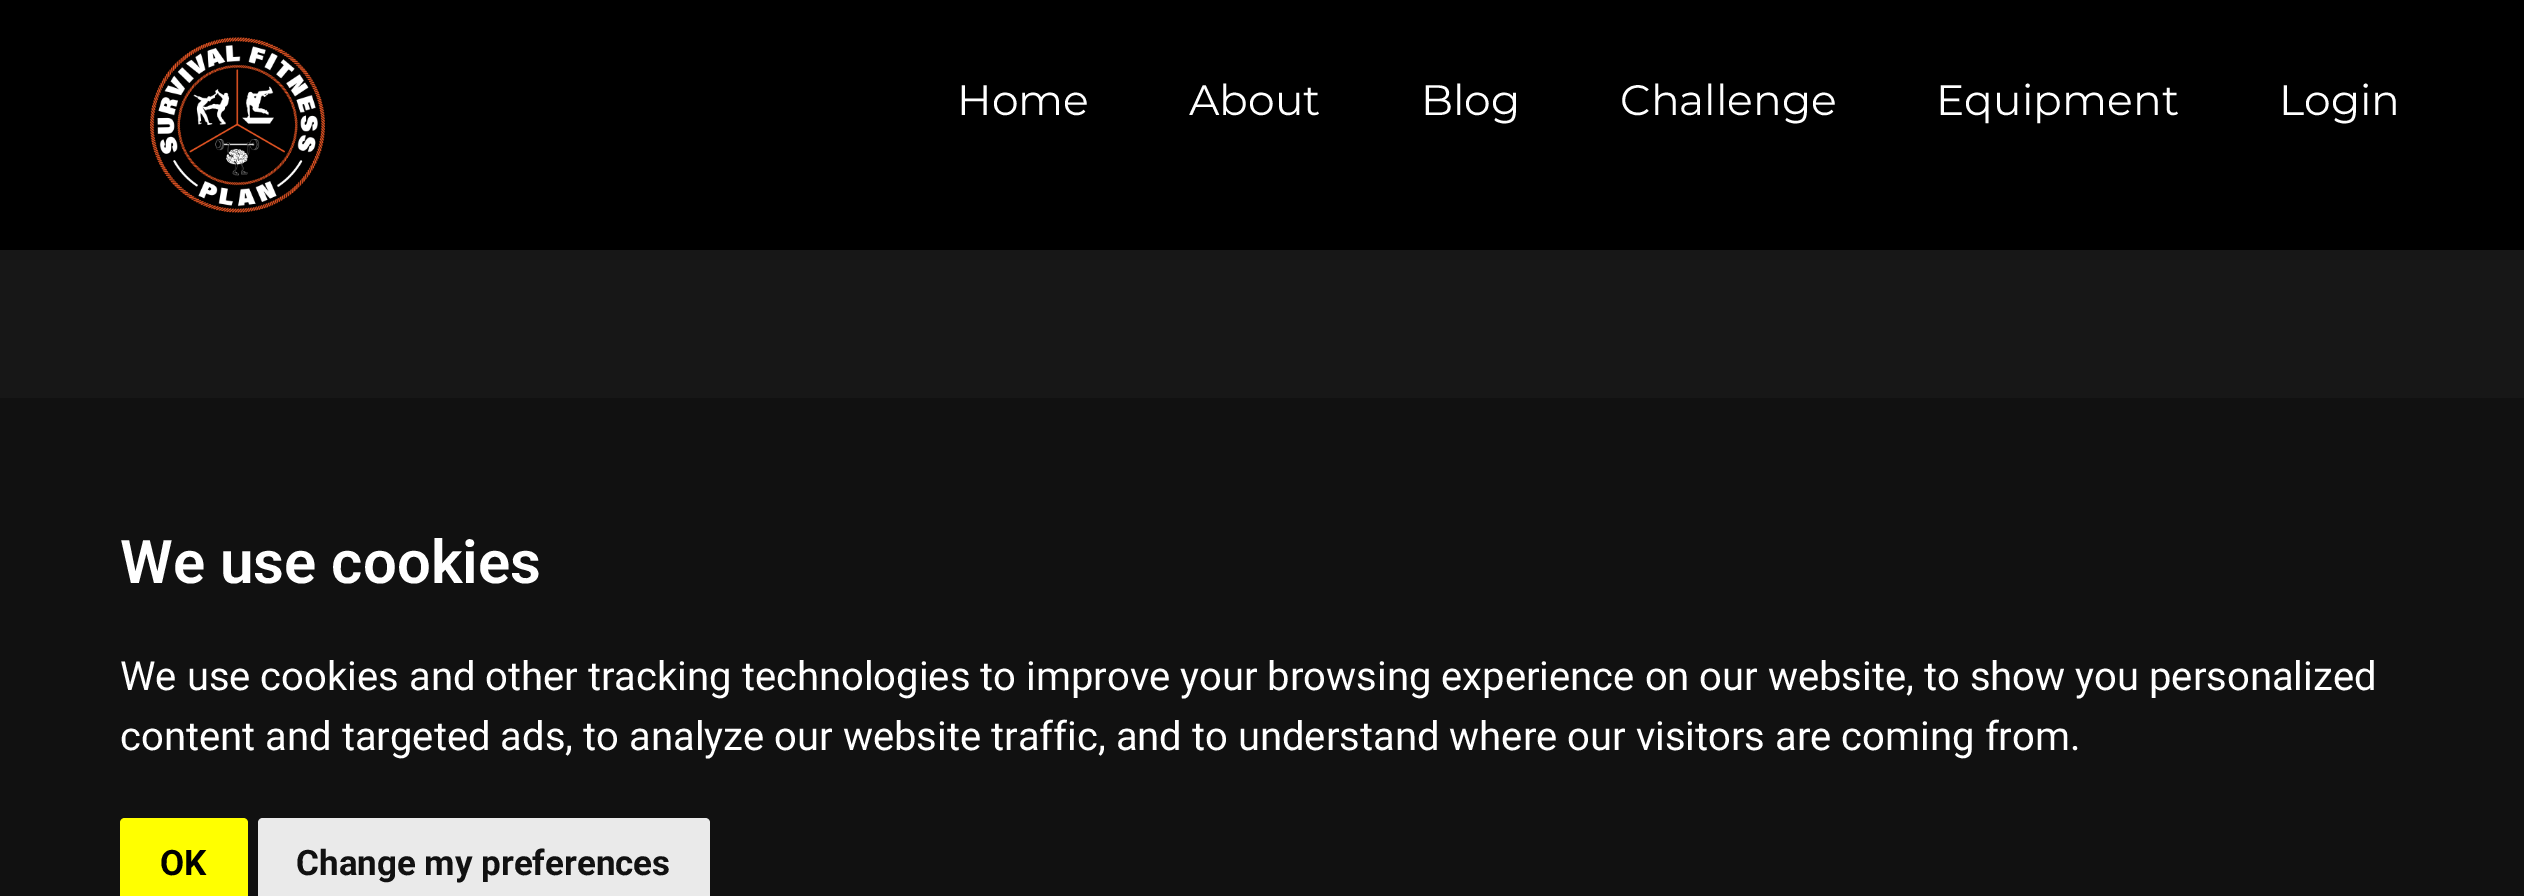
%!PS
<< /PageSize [2524 896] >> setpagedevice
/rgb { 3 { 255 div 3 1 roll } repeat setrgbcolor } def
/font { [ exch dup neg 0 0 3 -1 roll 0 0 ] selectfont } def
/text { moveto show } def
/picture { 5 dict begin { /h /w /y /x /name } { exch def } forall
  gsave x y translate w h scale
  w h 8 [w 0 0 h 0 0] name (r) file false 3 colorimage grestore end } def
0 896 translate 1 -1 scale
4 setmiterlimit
0 0 0 rgb
0 0 2524 896 rectfill
(img_01.rgb) 150 37 175 176 picture
23 23 23 rgb
0 250 2524 148 rectfill
17 17 17 rgb
0 398 2524 498 rectfill
255 255 0 rgb
125 818 moveto 118 0 rlineto 3 0 5 2 5 5 rcurveto 0 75 rlineto -128 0 rlineto 0 -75 rlineto 0 -3 2 -5 5 -5 rcurveto closepath fill
234 234 234 rgb
263 818 moveto 442 0 rlineto 3 0 5 2 5 5 rcurveto 0 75 rlineto -452 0 rlineto 0 -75 rlineto 0 -3 2 -5 5 -5 rcurveto closepath fill
/Montserrat-Regular 42.5 font
255 255 255 rgb
(Home) 957 115 text
(About) 1189 115 text
(Blog) 1421 115 text
(Challenge) 1620 115 text
(Equipment) 1936 115 text
(Login) 2279 115 text
/Roboto-SemiBold 60 font
(We use cookies) 120 583 text
/Roboto-Regular 40 font
(We use cookies and other tracking technologies to improve your browsing experience on our website, to show you personalized) 120 690 text
(content and targeted ads, to analyze our website traffic, and to understand where our visitors are coming from.) 120 750 text
/Roboto-Bold 35 font
0 0 0 rgb
(OK) 160 875 text
17 17 17 rgb
(Change my preferences) 296 875 text
showpage
